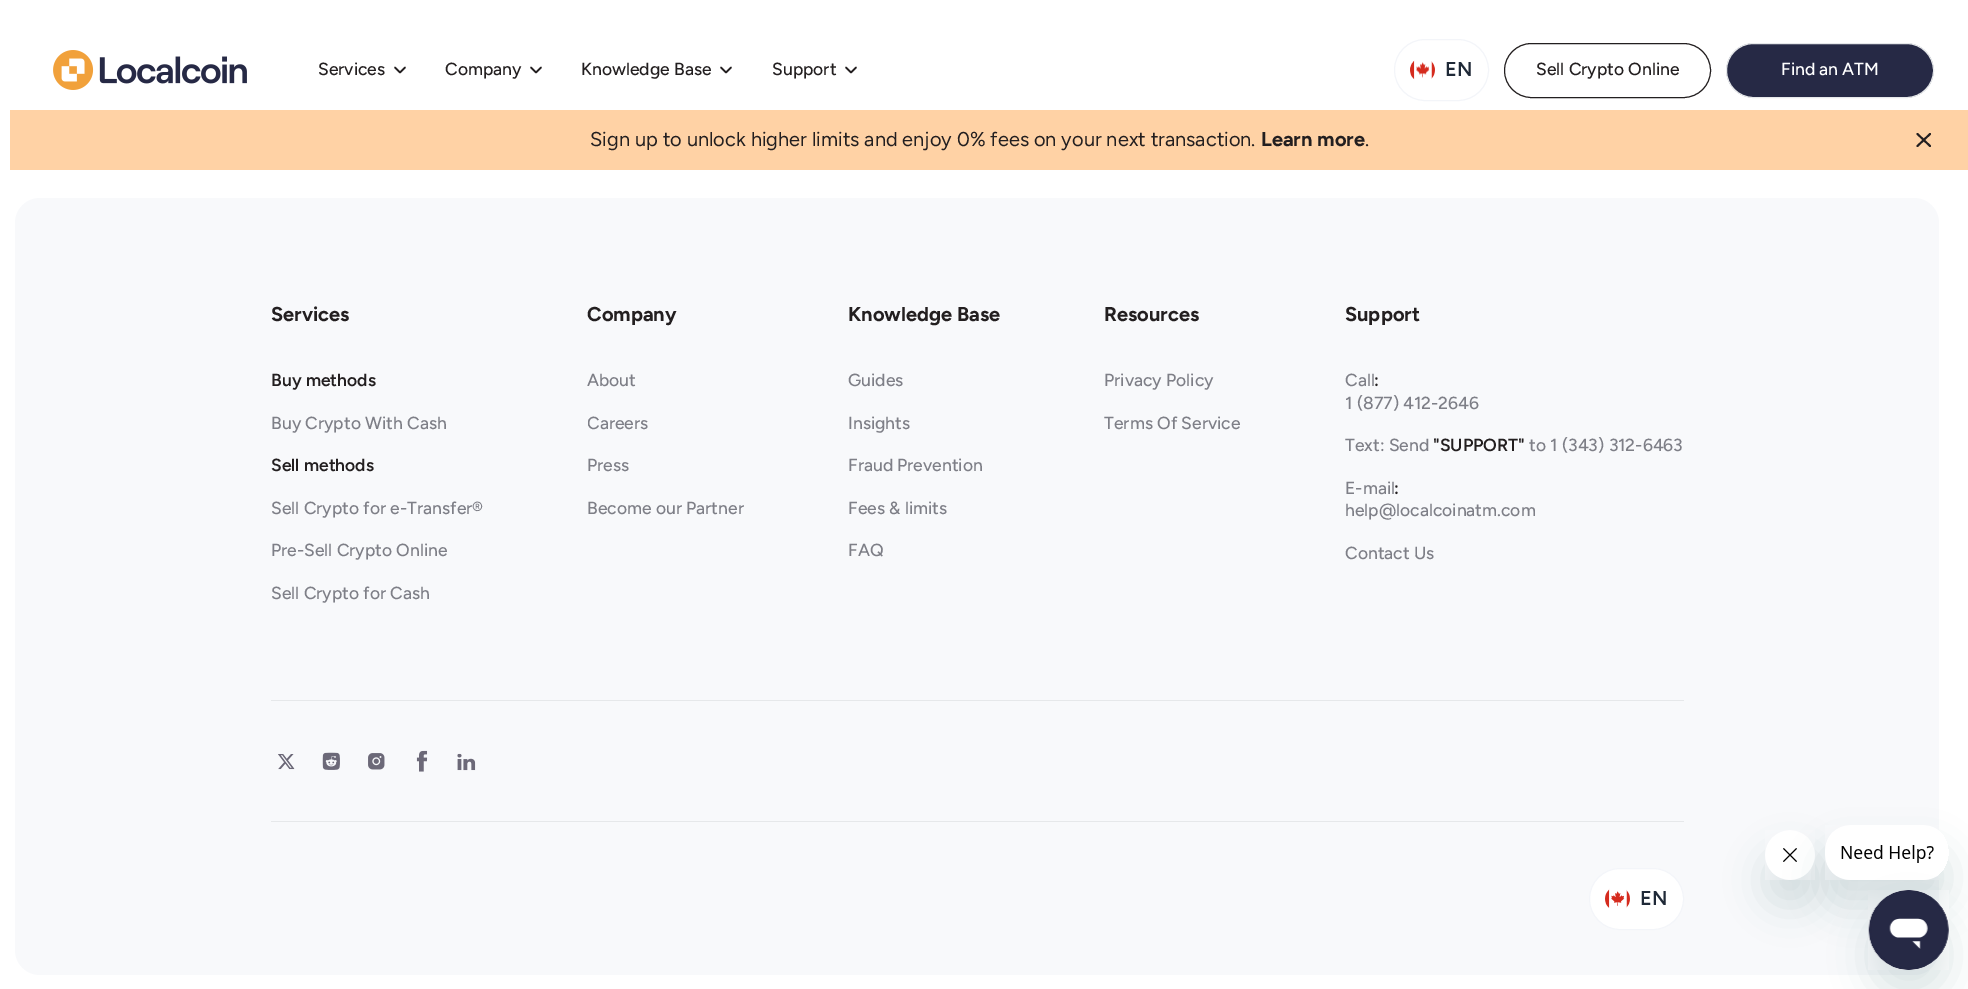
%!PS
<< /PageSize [1968 989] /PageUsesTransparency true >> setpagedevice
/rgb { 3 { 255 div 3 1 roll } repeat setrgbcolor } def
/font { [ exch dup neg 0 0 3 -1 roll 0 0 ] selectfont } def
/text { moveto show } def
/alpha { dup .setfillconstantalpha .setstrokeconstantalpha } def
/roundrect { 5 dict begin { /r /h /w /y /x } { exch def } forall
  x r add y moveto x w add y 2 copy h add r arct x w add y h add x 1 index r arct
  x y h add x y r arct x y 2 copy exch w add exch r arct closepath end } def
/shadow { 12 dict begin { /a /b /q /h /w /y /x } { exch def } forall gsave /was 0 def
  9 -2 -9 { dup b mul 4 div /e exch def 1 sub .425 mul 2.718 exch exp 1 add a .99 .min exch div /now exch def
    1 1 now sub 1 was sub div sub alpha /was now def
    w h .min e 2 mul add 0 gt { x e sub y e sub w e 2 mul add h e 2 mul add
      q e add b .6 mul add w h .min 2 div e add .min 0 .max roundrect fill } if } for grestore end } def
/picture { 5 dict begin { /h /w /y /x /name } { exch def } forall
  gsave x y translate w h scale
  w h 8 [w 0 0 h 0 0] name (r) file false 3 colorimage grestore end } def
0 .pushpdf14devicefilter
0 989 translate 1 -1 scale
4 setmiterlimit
255 255 255 rgb
0 0 1968 989 rectfill
(img_01.rgb) 53 50 194 40 picture
35 31 32 rgb
1.5 setlinewidth
1 setlinecap
1 setlinejoin
395 67.5 moveto 5 5 rlineto 5 -5 rlineto stroke
531 67.5 moveto 5 5 rlineto 5 -5 rlineto stroke
721 67.5 moveto 5 5 rlineto 5 -5 rlineto stroke
846 67.5 moveto 5 5 rlineto 5 -5 rlineto stroke
243 245 249 rgb
1 setlinewidth
0 setlinecap
0 setlinejoin
1394.5 39.5 94 61 30.5 roundrect stroke
(img_02.rgb) 1410 60 25 20 picture
35 31 32 rgb
1504.5 43.5 206 54 27 roundrect stroke
38 41 69 rgb
1726.5 43.5 207 54 27 roundrect gsave fill grestore
230 232 234 rgb
stroke
255 210 165 rgb
10 110 1958 60 rectfill
35 31 32 rgb
1.9 setlinewidth
1 setlinecap
1917.5 134 moveto 12.5 12 rlineto 1930 134 moveto -12.5 12 rlineto stroke
248 249 251 rgb
15 198 1924 777 25 roundrect fill
230 232 234 rgb
271 700 1413 1 rectfill
271 821 1413 1 rectfill
(img_03.rgb) 278 754 17 16 picture
(img_04.rgb) 322 752 18 18 picture
(img_05.rgb) 368 753 17 17 picture
(img_06.rgb) 416 750 12 22 picture
(img_07.rgb) 457 753 19 18 picture
255 255 255 rgb
1589.5 868.5 94 61 30.5 roundrect gsave fill grestore
243 245 249 rgb
1 setlinewidth
0 setlinecap
stroke
(img_08.rgb) 1605 888 25 20 picture
23 73 77 rgb
1765 855 50 50 25 19 0.15 shadow
(img_10.rgb) 1765 830 50 50 picture
gsave
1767 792 moveto 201 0 rlineto 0 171 rlineto -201 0 rlineto closepath 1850 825 moveto 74 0 rlineto 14 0 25 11 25 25 rcurveto 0 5 rlineto 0 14 -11 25 -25 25 rcurveto -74 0 rlineto -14 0 -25 -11 -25 -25 rcurveto 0 -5 rlineto 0 -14 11 -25 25 -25 rcurveto closepath eoclip newpath
1825 850 124 55 25 19 0.15 shadow
grestore
(img_09.rgb) 1825 825 114 55 picture
1869 915 80 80 40 19 0.15 shadow
(img_11.rgb) 1868 890 81 80 picture
/Figtree-Medium 17.5 font
35 31 32 rgb
(Services) 318 75 text
(Company) 445 75 text
(Knowledge Base) 581 75 text
(Support) 772 75 text
/Figtree-SemiBold 20 font
31 41 55 rgb
(EN) 1445 76 text
/Figtree-Medium 17.5 font
35 31 32 rgb
(Sell Crypto Online) 1536 75 text
255 255 255 rgb
(Find an ATM) 1781 75 text
/Figtree-Regular 20 font
35 31 32 rgb
(Sign up to unlock higher limits and enjoy 0% fees on your next transaction.) 590 146 text
/Figtree-Bold 20 font
(Learn more) 1261 146 text
/Figtree-Regular 20 font
(.) 1365 146 text
/Figtree-Bold 20 font
(Services) 271 321 text
/Figtree-SemiBold 17.5 font
(Buy methods) 271 386 text
/Figtree-Medium 17.5 font
126 127 135 rgb
(Buy Crypto With Cash) 271 429 text
/Figtree-SemiBold 17.5 font
35 31 32 rgb
(Sell methods) 271 471 text
/Figtree-Medium 17.5 font
126 127 135 rgb
(Sell Crypto for e-Transfer®) 271 514 text
(Pre-Sell Crypto Online) 271 556 text
(Sell Crypto for Cash) 271 599 text
/Figtree-Bold 20 font
35 31 32 rgb
(Company) 587 321 text
/Figtree-Medium 17.5 font
126 127 135 rgb
(About) 587 386 text
gsave
588 370 156 170 rectclip
(Careers) 587 429 text
grestore
(Press) 587 471 text
(Become our Partner) 587 514 text
/Figtree-Bold 20 font
35 31 32 rgb
(Knowledge Base) 848 321 text
/Figtree-Medium 17.5 font
126 127 135 rgb
(Guides) 848 386 text
(Insights) 848 429 text
(Fraud Prevention) 848 471 text
(Fees & limits) 848 514 text
(FAQ) 848 556 text
/Figtree-Bold 20 font
35 31 32 rgb
(Resources) 1104 321 text
/Figtree-Medium 17.5 font
126 127 135 rgb
(Privacy Policy) 1104 386 text
(Terms Of Service) 1104 429 text
/Figtree-Bold 20 font
35 31 32 rgb
(Support) 1345 321 text
/Figtree-Medium 17.5 font
126 127 135 rgb
(Call) 1345 386 text
/Figtree-SemiBold 17.5 font
35 31 32 rgb
(:) 1374 386 text
/Figtree-Medium 17.5 font
126 127 135 rgb
(1 \(877\) 412-2646) 1345 409 text
(Text: Send) 1345 451 text
/Figtree-SemiBold 17.5 font
35 31 32 rgb
("SUPPORT") 1433 451 text
/Figtree-Medium 17.5 font
126 127 135 rgb
(to 1 \(343\) 312-6463) 1529 451 text
(E-mail) 1345 494 text
/Figtree-SemiBold 17.5 font
35 31 32 rgb
(:) 1394 494 text
/Figtree-Medium 17.5 font
126 127 135 rgb
(help@localcoinatm.com) 1345 516 text
(Contact Us) 1345 559 text
/Figtree-SemiBold 20 font
31 41 55 rgb
(EN) 1640 905 text
.poppdf14devicefilter showpage
